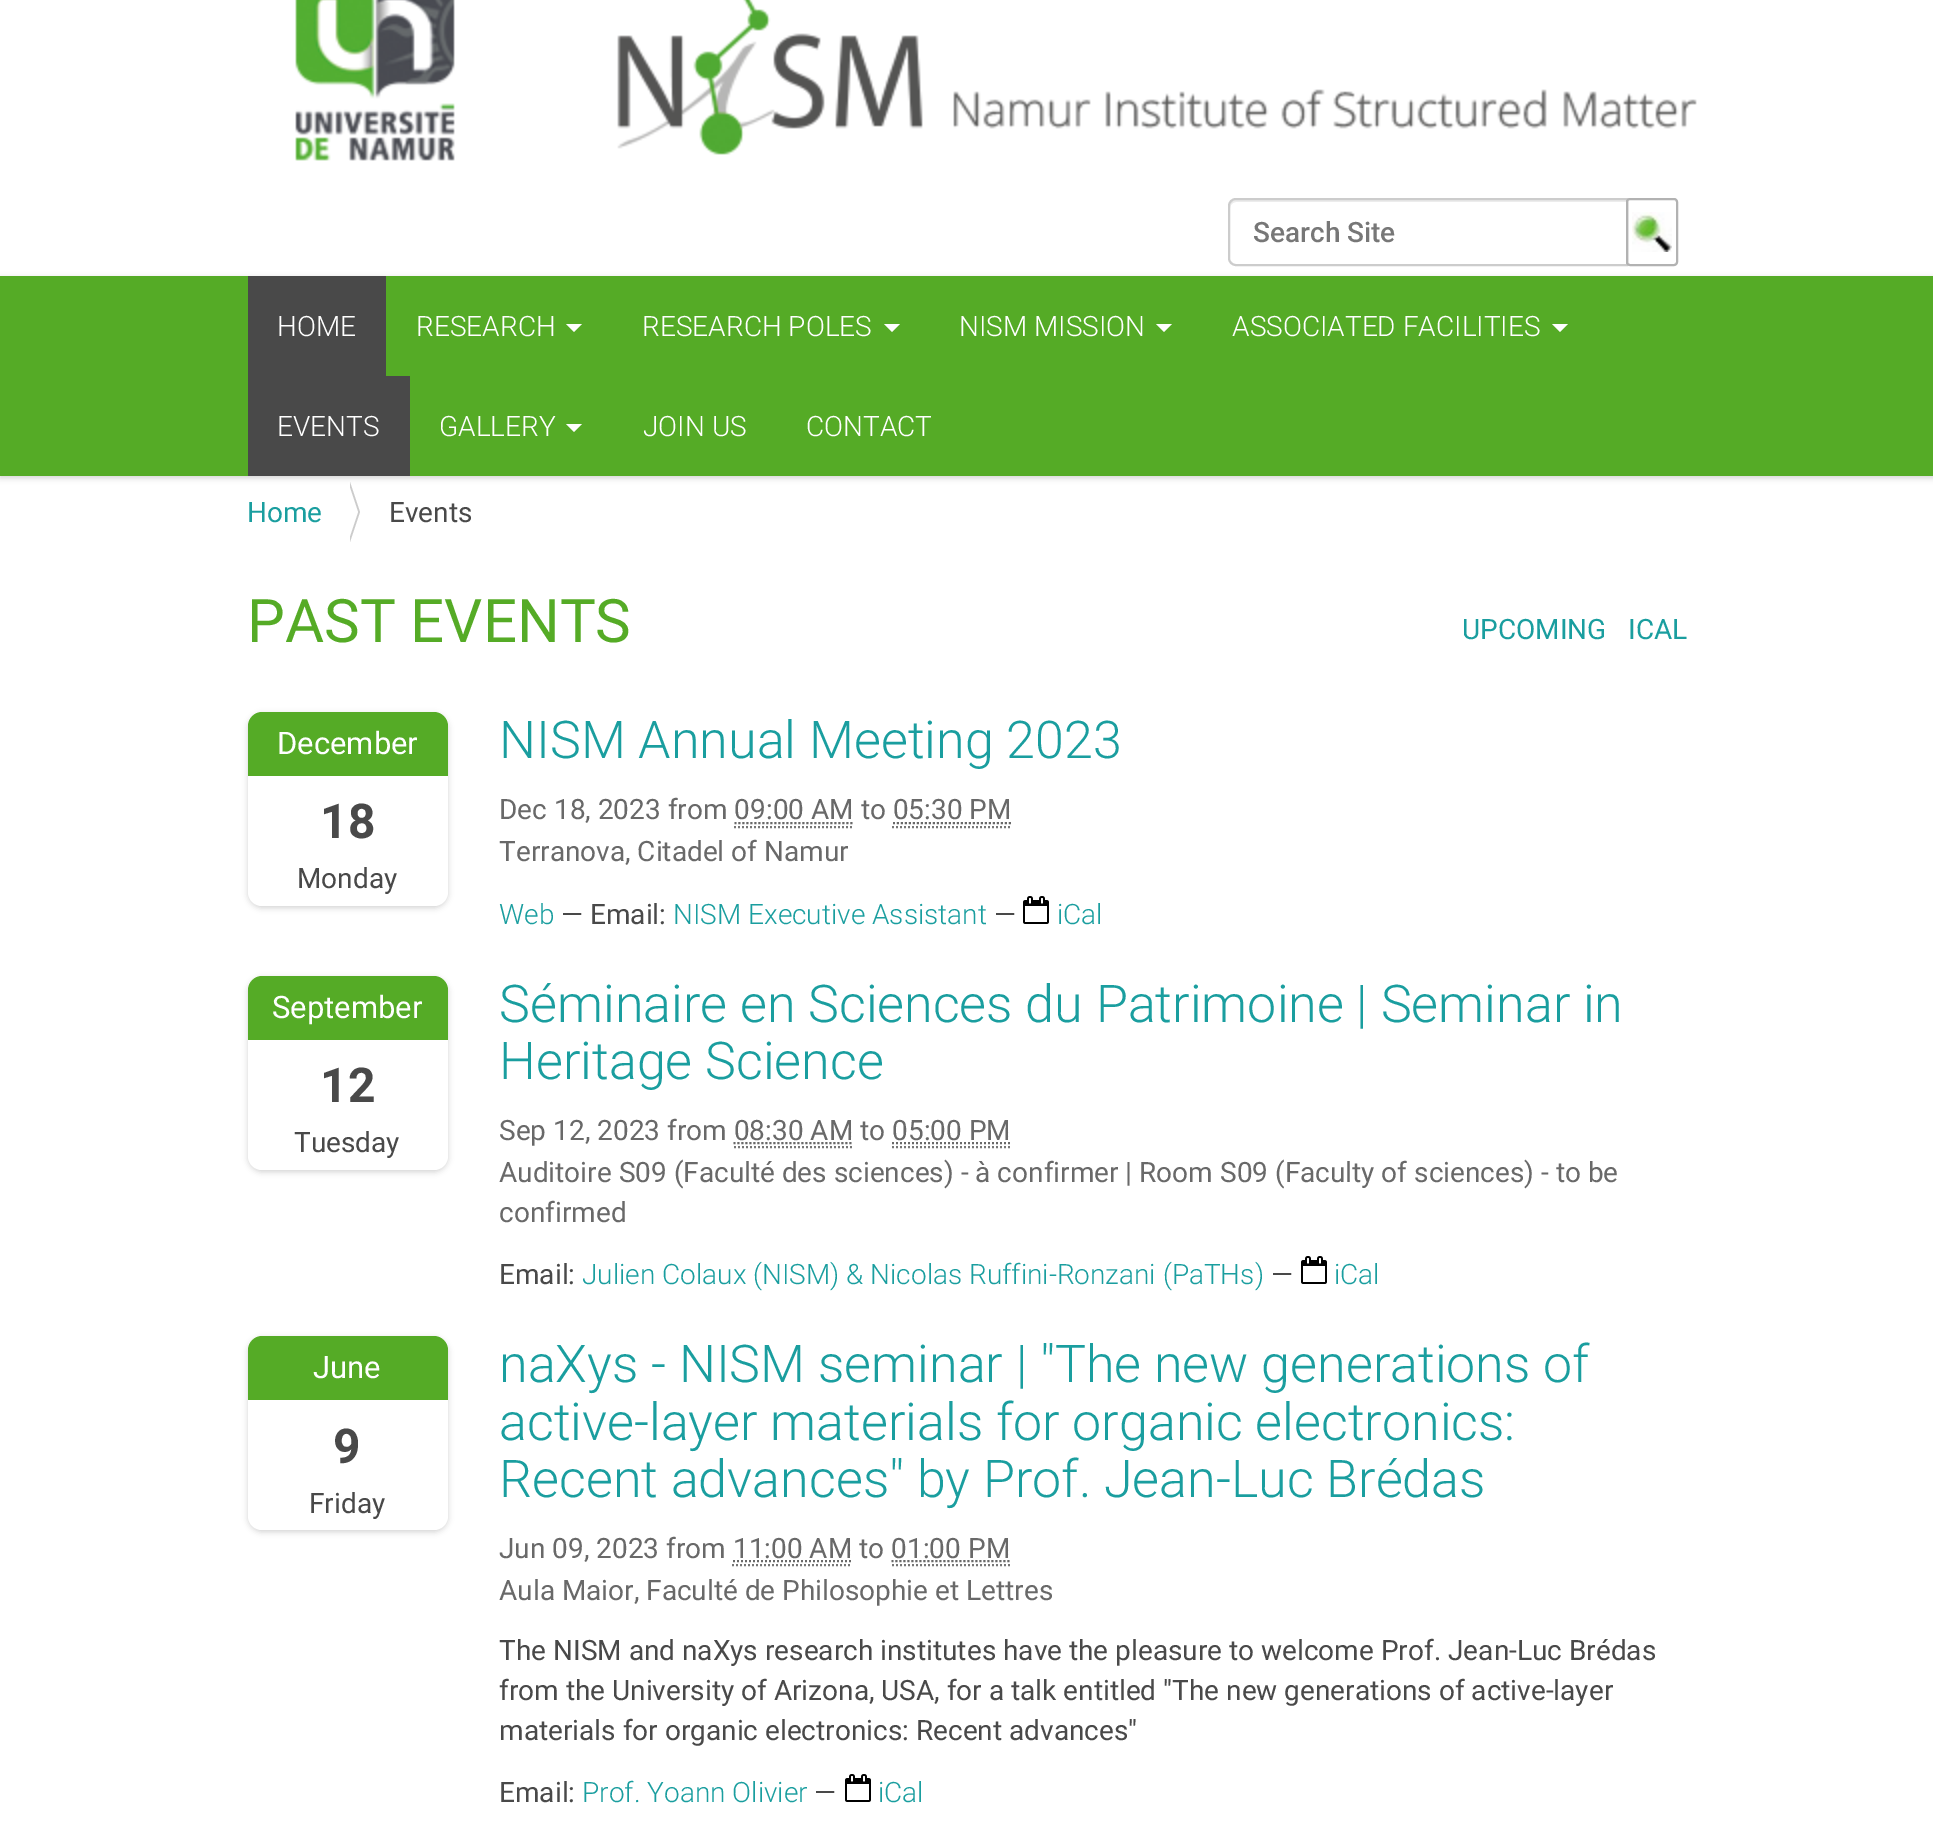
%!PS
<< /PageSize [1933 1836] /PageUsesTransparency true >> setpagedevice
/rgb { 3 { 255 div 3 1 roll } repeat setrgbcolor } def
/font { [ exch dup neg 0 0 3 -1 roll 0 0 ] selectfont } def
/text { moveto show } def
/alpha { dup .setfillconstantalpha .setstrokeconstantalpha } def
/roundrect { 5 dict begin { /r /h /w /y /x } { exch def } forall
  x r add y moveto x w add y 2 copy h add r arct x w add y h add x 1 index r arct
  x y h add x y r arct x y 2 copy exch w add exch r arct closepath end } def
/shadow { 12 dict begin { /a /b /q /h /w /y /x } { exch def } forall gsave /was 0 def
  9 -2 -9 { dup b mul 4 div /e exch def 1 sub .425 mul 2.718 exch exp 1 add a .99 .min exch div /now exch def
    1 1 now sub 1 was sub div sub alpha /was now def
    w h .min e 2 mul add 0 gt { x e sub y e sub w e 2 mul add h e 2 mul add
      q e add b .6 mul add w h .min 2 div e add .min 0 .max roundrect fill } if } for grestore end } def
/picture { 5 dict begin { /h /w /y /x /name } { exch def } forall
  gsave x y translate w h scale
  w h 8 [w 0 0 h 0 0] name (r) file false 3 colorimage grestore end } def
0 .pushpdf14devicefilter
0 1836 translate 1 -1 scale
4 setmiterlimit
255 255 255 rgb
0 0 1933 1836 rectfill
(img_01.rgb) 295 0 1402 161 picture
236 236 236 rgb
1236 202 moveto 390 0 rlineto 0 -2 rlineto -390 0 rlineto -5 0 -6 4 -6 8 rcurveto 0 -3 3 -6 6 -6 rcurveto closepath fill
204 204 204 rgb
2 setlinewidth
1236 199 moveto 391 0 rlineto 0 66 rlineto -391 0 rlineto -4 0 -7 -3 -7 -7 rcurveto 0 -52 rlineto 0 -4 3 -7 7 -7 rcurveto closepath stroke
(img_02.rgb) 1632 212 40 40 picture
178 178 178 rgb
1627 199 50 66 3 roundrect stroke
0 0 0 rgb
0 278 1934 200 0 3 0.17 shadow
85 171 38 rgb
0 276 1933 200 rectfill
73 73 73 rgb
248 276 138 100 rectfill
255 255 255 rgb
566 324 moveto 16 0 rlineto -8 8 rlineto closepath fill
884 324 moveto 16 0 rlineto -8 8 rlineto closepath fill
1156 324 moveto 16 0 rlineto -8 8 rlineto closepath fill
1552 324 moveto 16 0 rlineto -8 8 rlineto closepath fill
73 73 73 rgb
248 376 162 100 rectfill
255 255 255 rgb
566 424 moveto 16 0 rlineto -8 8 rlineto closepath fill
204 204 204 rgb
350 542 moveto 0 -60 rlineto 10 30 rlineto closepath fill
255 255 255 rgb
348 542 moveto 0 -60 rlineto 10 30 rlineto closepath fill
0 0 0 rgb
248 714 200 194 14 3 0.17 shadow
255 255 255 rgb
248 712 200 194 14 roundrect fill
85 171 38 rgb
262 712 moveto 172 0 rlineto 7.5 0 14 6.5 14 14 rcurveto 0 50 rlineto -200 0 rlineto 0 -50 rlineto 0 -7.5 6.5 -14 14 -14 rcurveto closepath fill
105 105 105 rgb
[2 2] 0 setdash
734.5 823 moveto 119.5 0 rlineto stroke
893 823 moveto 118.5 0 rlineto stroke
119 119 119 rgb
734 827 moveto 120 0 rlineto stroke
892 827 moveto 120 0 rlineto stroke
(img_03.rgb) 1023 896 26 28 picture
0 0 0 rgb
248 978 200 194 14 3 0.17 shadow
255 255 255 rgb
248 976 200 194 14 roundrect fill
85 171 38 rgb
262 976 moveto 172 0 rlineto 7.5 0 14 6.5 14 14 rcurveto 0 50 rlineto -200 0 rlineto 0 -50 rlineto 0 -7.5 6.5 -14 14 -14 rcurveto closepath fill
105 105 105 rgb
733.5 1143 moveto 119.5 0 rlineto stroke
892 1143 moveto 119 0 rlineto stroke
119 119 119 rgb
734 1147 moveto 120 0 rlineto stroke
892 1147 moveto 118 0 rlineto stroke
(img_03.rgb) 1301 1256 26 28 picture
0 0 0 rgb
248 1338 200 194 14 3 0.17 shadow
255 255 255 rgb
248 1336 200 194 14 roundrect fill
85 171 38 rgb
262 1336 moveto 172 0 rlineto 7.5 0 14 6.5 14 14 rcurveto 0 50 rlineto -200 0 rlineto 0 -50 rlineto 0 -7.5 6.5 -14 14 -14 rcurveto closepath fill
105 105 105 rgb
733 1561 moveto 119 0 rlineto stroke
891.5 1561 moveto 118.5 0 rlineto stroke
119 119 119 rgb
732 1565 moveto 120 0 rlineto stroke
892 1565 moveto 118 0 rlineto stroke
(img_03.rgb) 845 1774 26 28 picture
/Roboto-Medium 28 font
(Search Site) 1253 242 text
/Roboto-Light 28 font
255 255 255 rgb
(HOME) 277 336 text
(RESEARCH) 416 336 text
(RESEARCH POLES) 642 336 text
(NISM MISSION) 959 336 text
(ASSOCIATED FACILITIES) 1232 336 text
(EVENTS) 277 436 text
(GALLERY) 439 436 text
(JOIN US) 643 436 text
(CONTACT) 806 436 text
/Roboto-Regular 28 font
26 158 159 rgb
(Home) 247 522 text
73 73 73 rgb
(Events) 389 522 text
/Roboto-Regular 60 font
85 171 38 rgb
(PAST EVENTS) 247 642 text
/Roboto-Regular 28 font
26 158 159 rgb
(UPCOMING) 1462 639 text
(ICAL) 1628 639 text
/Roboto-Regular 31 font
255 255 255 rgb
(December) 277 754 text
/Roboto-Bold 48 font
73 73 73 rgb
(18) 320 838 text
/Roboto-Regular 28 font
(Monday) 297 888 text
/Roboto-Light 52 font
26 158 159 rgb
(NISM Annual Meeting 2023) 499 758 text
/Roboto-Regular 28 font
105 105 105 rgb
(Dec 18, 2023 from 09:00 AM to 05:30 PM) 499 819 text
(Terranova, Citadel of Namur) 499 861 text
/Roboto-Light 28 font
26 158 159 rgb
(Web) 499 924 text
/Roboto-Regular 28 font
73 73 73 rgb
(— Email:) 561 924 text
/Roboto-Light 28 font
26 158 159 rgb
(NISM Executive Assistant) 673 924 text
/Roboto-Regular 28 font
73 73 73 rgb
(—) 994 924 text
/Roboto-Light 28 font
26 158 159 rgb
(iCal) 1057 924 text
/Roboto-Regular 31 font
255 255 255 rgb
(September) 272 1018 text
/Roboto-Bold 48 font
73 73 73 rgb
(12) 320 1102 text
/Roboto-Regular 28 font
(Tuesday) 294 1152 text
/Roboto-Light 52 font
26 158 159 rgb
(Séminaire en Sciences du Patrimoine | Seminar in) 499 1022 text
(Heritage Science) 499 1079 text
/Roboto-Regular 28 font
105 105 105 rgb
(Sep 12, 2023 from 08:30 AM to 05:00 PM) 499 1140 text
(Auditoire S09 \(Faculté des sciences\) - à confirmer | Room S09 \(Faculty of sciences\) - to be) 499 1182 text
(confirmed) 499 1222 text
73 73 73 rgb
(Email:) 499 1284 text
/Roboto-Light 28 font
26 158 159 rgb
(Julien Colaux \(NISM\) & Nicolas Ruffini-Ronzani \(PaTHs\)) 582 1284 text
/Roboto-Regular 28 font
73 73 73 rgb
(—) 1271 1284 text
/Roboto-Light 28 font
26 158 159 rgb
(iCal) 1334 1284 text
/Roboto-Regular 31 font
255 255 255 rgb
(June) 313 1378 text
/Roboto-Bold 48 font
73 73 73 rgb
(9) 333 1463 text
/Roboto-Regular 28 font
(Friday) 309 1513 text
/Roboto-Light 52 font
26 158 159 rgb
(naXys - NISM seminar | "The new generations of) 499 1382 text
(active-layer materials for organic electronics:) 499 1440 text
(Recent advances" by Prof. Jean-Luc Brédas) 499 1497 text
/Roboto-Regular 28 font
105 105 105 rgb
(Jun 09, 2023 from 11:00 AM to 01:00 PM) 499 1558 text
(Aula Maior, Faculté de Philosophie et Lettres) 499 1600 text
73 73 73 rgb
(The NISM and naXys research institutes have the pleasure to welcome Prof. Jean-Luc Brédas) 499 1660 text
(from the University of Arizona, USA, for a talk entitled "The new generations of active-layer) 499 1700 text
(materials for organic electronics: Recent advances") 499 1740 text
(Email:) 499 1802 text
/Roboto-Light 28 font
26 158 159 rgb
(Prof. Yoann Olivier) 582 1802 text
/Roboto-Regular 28 font
73 73 73 rgb
(—) 814 1802 text
/Roboto-Light 28 font
26 158 159 rgb
(iCal) 878 1802 text
.poppdf14devicefilter showpage
